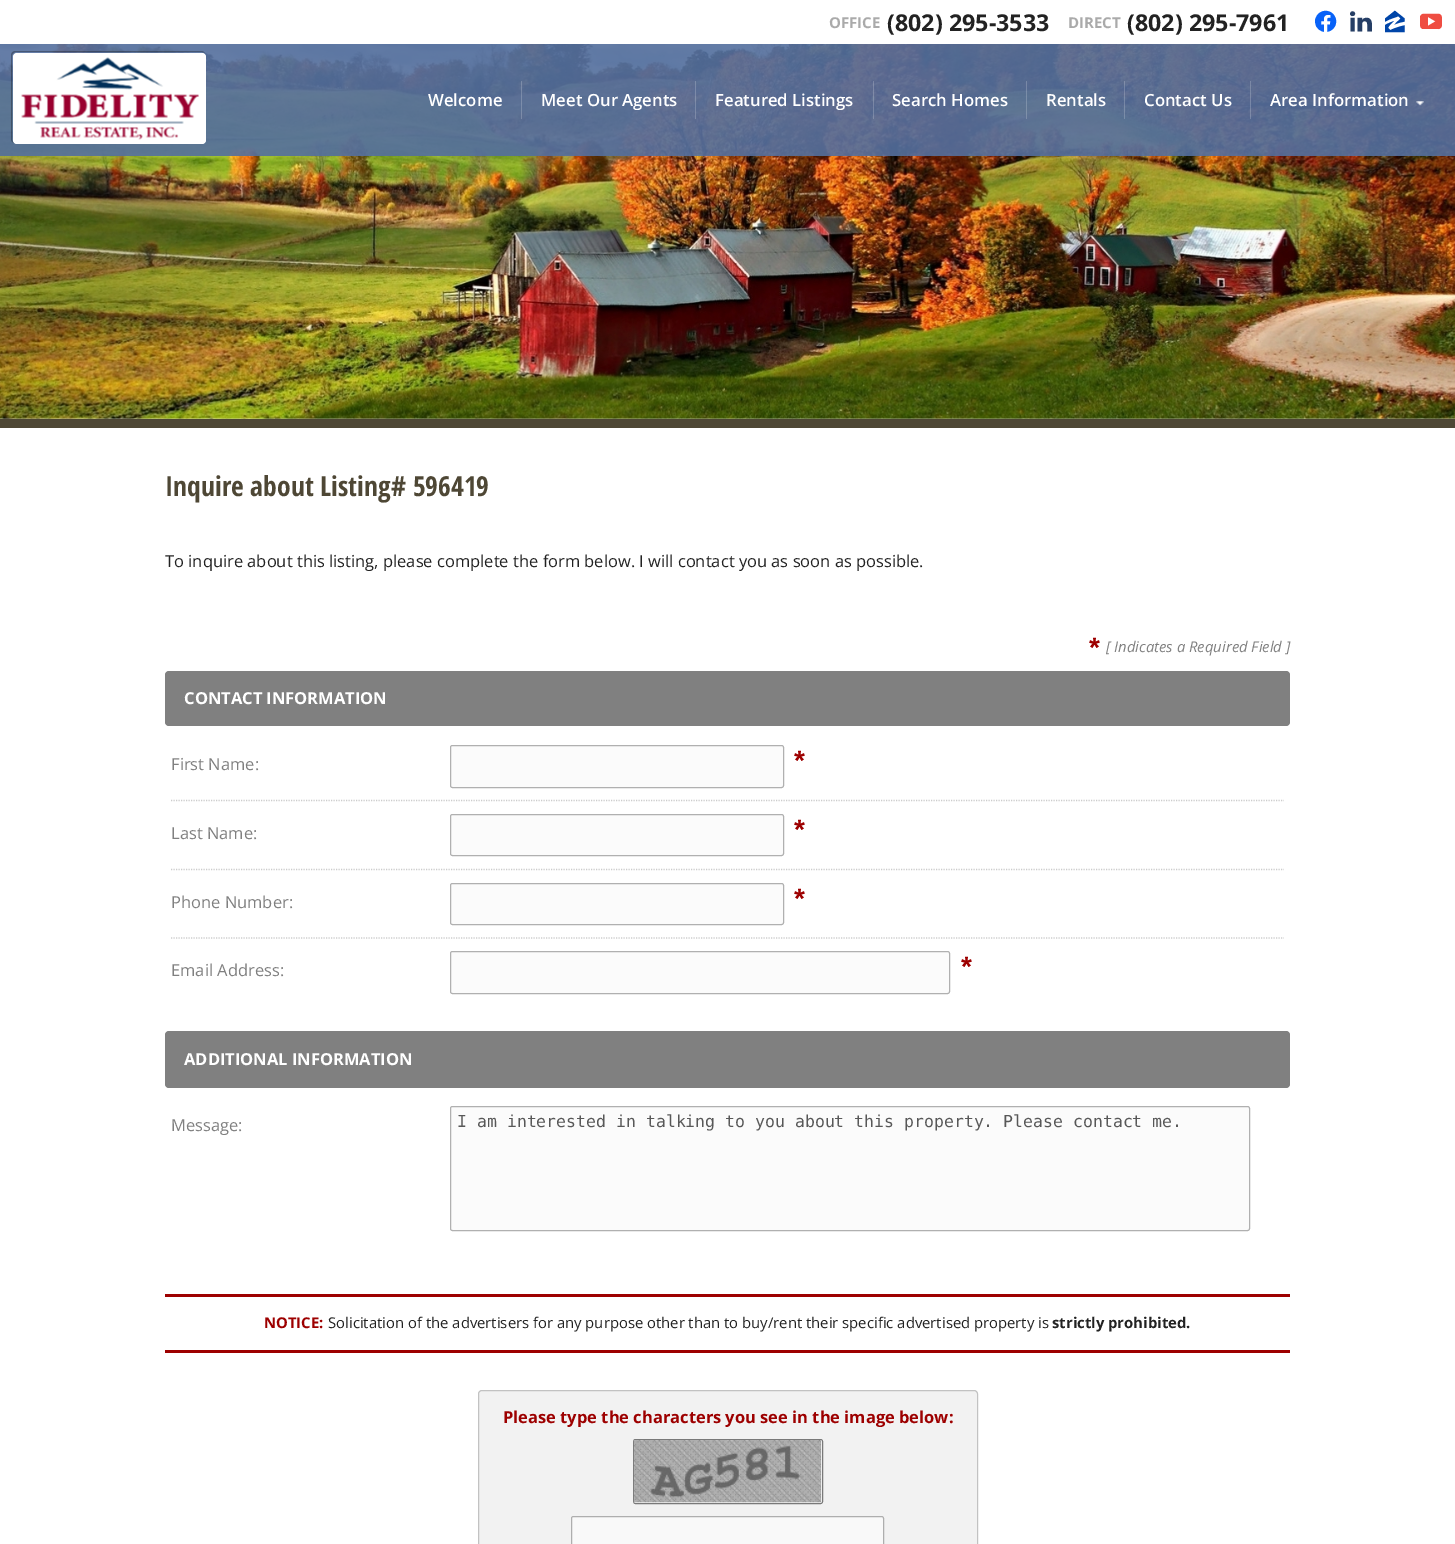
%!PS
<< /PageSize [1455 1544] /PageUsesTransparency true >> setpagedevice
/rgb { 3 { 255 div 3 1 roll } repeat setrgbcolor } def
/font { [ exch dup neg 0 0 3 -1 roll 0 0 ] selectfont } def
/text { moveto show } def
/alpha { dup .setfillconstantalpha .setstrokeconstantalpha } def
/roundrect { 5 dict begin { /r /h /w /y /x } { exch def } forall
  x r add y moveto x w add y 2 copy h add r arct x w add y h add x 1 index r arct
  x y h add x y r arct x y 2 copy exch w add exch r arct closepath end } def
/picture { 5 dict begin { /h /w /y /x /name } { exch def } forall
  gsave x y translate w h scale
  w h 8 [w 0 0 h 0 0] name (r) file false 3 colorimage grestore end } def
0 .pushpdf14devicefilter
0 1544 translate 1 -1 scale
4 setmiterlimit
255 255 255 rgb
0 0 1455 1544 rectfill
(img_03.rgb) 0 44 1455 375 picture
0.9 alpha
84 111 158 rgb
0 44 1455 112 rectfill
0.3 alpha
0 0 0 rgb
15 51 moveto -2 0 -4 2 -4 4 rcurveto 0 84 rlineto 0 2 1 3 3 4 rcurveto -1 -1 -2 -2 -2 -3 rcurveto 0 -84 rlineto 0 -2 2 -4 4 -4 rcurveto 186 0 rlineto 3 1 rlineto -1 -1 -2 -2 -4 -2 rcurveto closepath fill
1 alpha
255 255 255 rgb
13 53 193 91 4 roundrect fill
(img_01.rgb) 21 57 178 83 picture
0.2 alpha
521 81 1 38 rectfill
695 81 1 38 rectfill
873 81 1 38 rectfill
1026 81 1 38 rectfill
1124 81 1 38 rectfill
1250 81 1 38 rectfill
1 alpha
(img_02.rgb) 1416 101 8 5 picture
78 71 53 rgb
0 419 1455 9 rectfill
128 128 128 rgb
165 671 1125 55 4 roundrect fill
251 251 251 rgb
450.5 745.5 333 42 2 roundrect gsave fill grestore
176 176 176 rgb
stroke
204 204 204 rgb
1.2 setlinewidth
[1.25 1.25] 0 setdash
171 800.5 moveto 1113 0 rlineto stroke
251 251 251 rgb
450.5 814.5 333 41 2 roundrect gsave fill grestore
176 176 176 rgb
1 setlinewidth
[] 0 setdash
stroke
204 204 204 rgb
1.2 setlinewidth
[1.25 1.25] 0 setdash
171 869.5 moveto 1113 0 rlineto stroke
251 251 251 rgb
450.5 883.5 333 41 2 roundrect gsave fill grestore
176 176 176 rgb
1 setlinewidth
[] 0 setdash
stroke
204 204 204 rgb
1.2 setlinewidth
[1.25 1.25] 0 setdash
171 938 moveto 1113 0 rlineto stroke
251 251 251 rgb
450.5 951.5 499 42 2 roundrect gsave fill grestore
176 176 176 rgb
1 setlinewidth
[] 0 setdash
stroke
128 128 128 rgb
165 1031 1125 57 4 roundrect fill
251 251 251 rgb
450.5 1106.5 799 124 2 roundrect gsave fill grestore
176 176 176 rgb
stroke
157 0 0 rgb
165 1294 1125 3 rectfill
165 1350 1125 3 rectfill
242 242 242 rgb
478 1390 500 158 4 roundrect fill
0.2 alpha
0 0 0 rgb
478.5 1390.5 499 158 3.5 roundrect stroke
1 alpha
121 121 121 rgb
633.5 1439.5 189 64 2 roundrect stroke
(img_04.rgb) 633 1440 189 63 picture
249 249 249 rgb
571.5 1516.5 312 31 2 roundrect gsave fill grestore
174 174 174 rgb
stroke
/OpenSans-Bold 15 font
170 170 170 rgb
(OFFICE) 829 28 text
/OpenSans-Bold 23.25 font
34 34 34 rgb
(\(802\) 295-3533) 887 31 text
/OpenSans-Bold 15 font
170 170 170 rgb
(DIRECT) 1068 28 text
/OpenSans-Bold 23.25 font
34 34 34 rgb
(\(802\) 295-7961) 1127 31 text
/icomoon-Regular 22 font
8 98 248 rgb
(f) 1315 31 text
37 62 101 rgb
(l) 1350 31 text
0 69 168 rgb
(z) 1385 31 text
239 77 66 rgb
(y) 1420 31 text
/OpenSans-SemiBold 16.75 font
255 255 255 rgb
(Welcome) 428 106 text
(Meet Our Agents) 541 106 text
(Featured Listings) 715 106 text
(Search Homes) 892 106 text
(Rentals) 1046 106 text
(Contact Us) 1144 106 text
(Area Information) 1270 106 text
/OpenSansCondensed-Bold 27.6 font
78 71 53 rgb
(Inquire about Listing# 596419) 165 496 text
/OpenSans-Regular 16.5 font
34 34 34 rgb
(To inquire about this listing, please complete the form below. I will contact you as soon as possible.) 165 567 text
/LiberationSans-Bold 28 font
157 0 0 rgb
(*) 1089 657 text
/OpenSans-Italic 14.85 font
128 128 128 rgb
([ Indicates a Required Field ]) 1106 652 text
/OpenSans-Bold 16.5 font
255 255 255 rgb
(CONTACT INFORMATION) 184 704 text
/OpenSans-Regular 16.5 font
128 128 128 rgb
(First Name:) 171 770 text
/LiberationSans-Bold 28 font
157 0 0 rgb
(*) 794 770 text
(*) 794 839 text
/OpenSans-Regular 16.5 font
128 128 128 rgb
(Last Name:) 171 839 text
(Phone Number:) 171 908 text
/LiberationSans-Bold 28 font
157 0 0 rgb
(*) 794 908 text
/OpenSans-Regular 16.5 font
128 128 128 rgb
(Email Address:) 171 976 text
/LiberationSans-Bold 28 font
157 0 0 rgb
(*) 961 976 text
/OpenSans-Bold 16.5 font
255 255 255 rgb
(ADDITIONAL INFORMATION) 184 1065 text
/OpenSans-Regular 16.5 font
128 128 128 rgb
(Message:) 171 1131 text
/DejaVuSansMono-Regular 16.5 font
88 88 88 rgb
(I am interested in talking to you about this property. Please contact me.) 457 1127 text
/OpenSans-Bold 14.85 font
157 0 0 rgb
(NOTICE:) 264 1328 text
/OpenSans-Regular 14.85 font
34 34 34 rgb
(Solicitation of the advertisers for any purpose other than to buy/rent their specific advertised property is) 328 1328 text
/OpenSans-Bold 14.85 font
(strictly prohibited.) 1052 1328 text
/OpenSans-Bold 16.5 font
157 0 0 rgb
(Please type the characters you see in the image below:) 503 1423 text
.poppdf14devicefilter showpage
